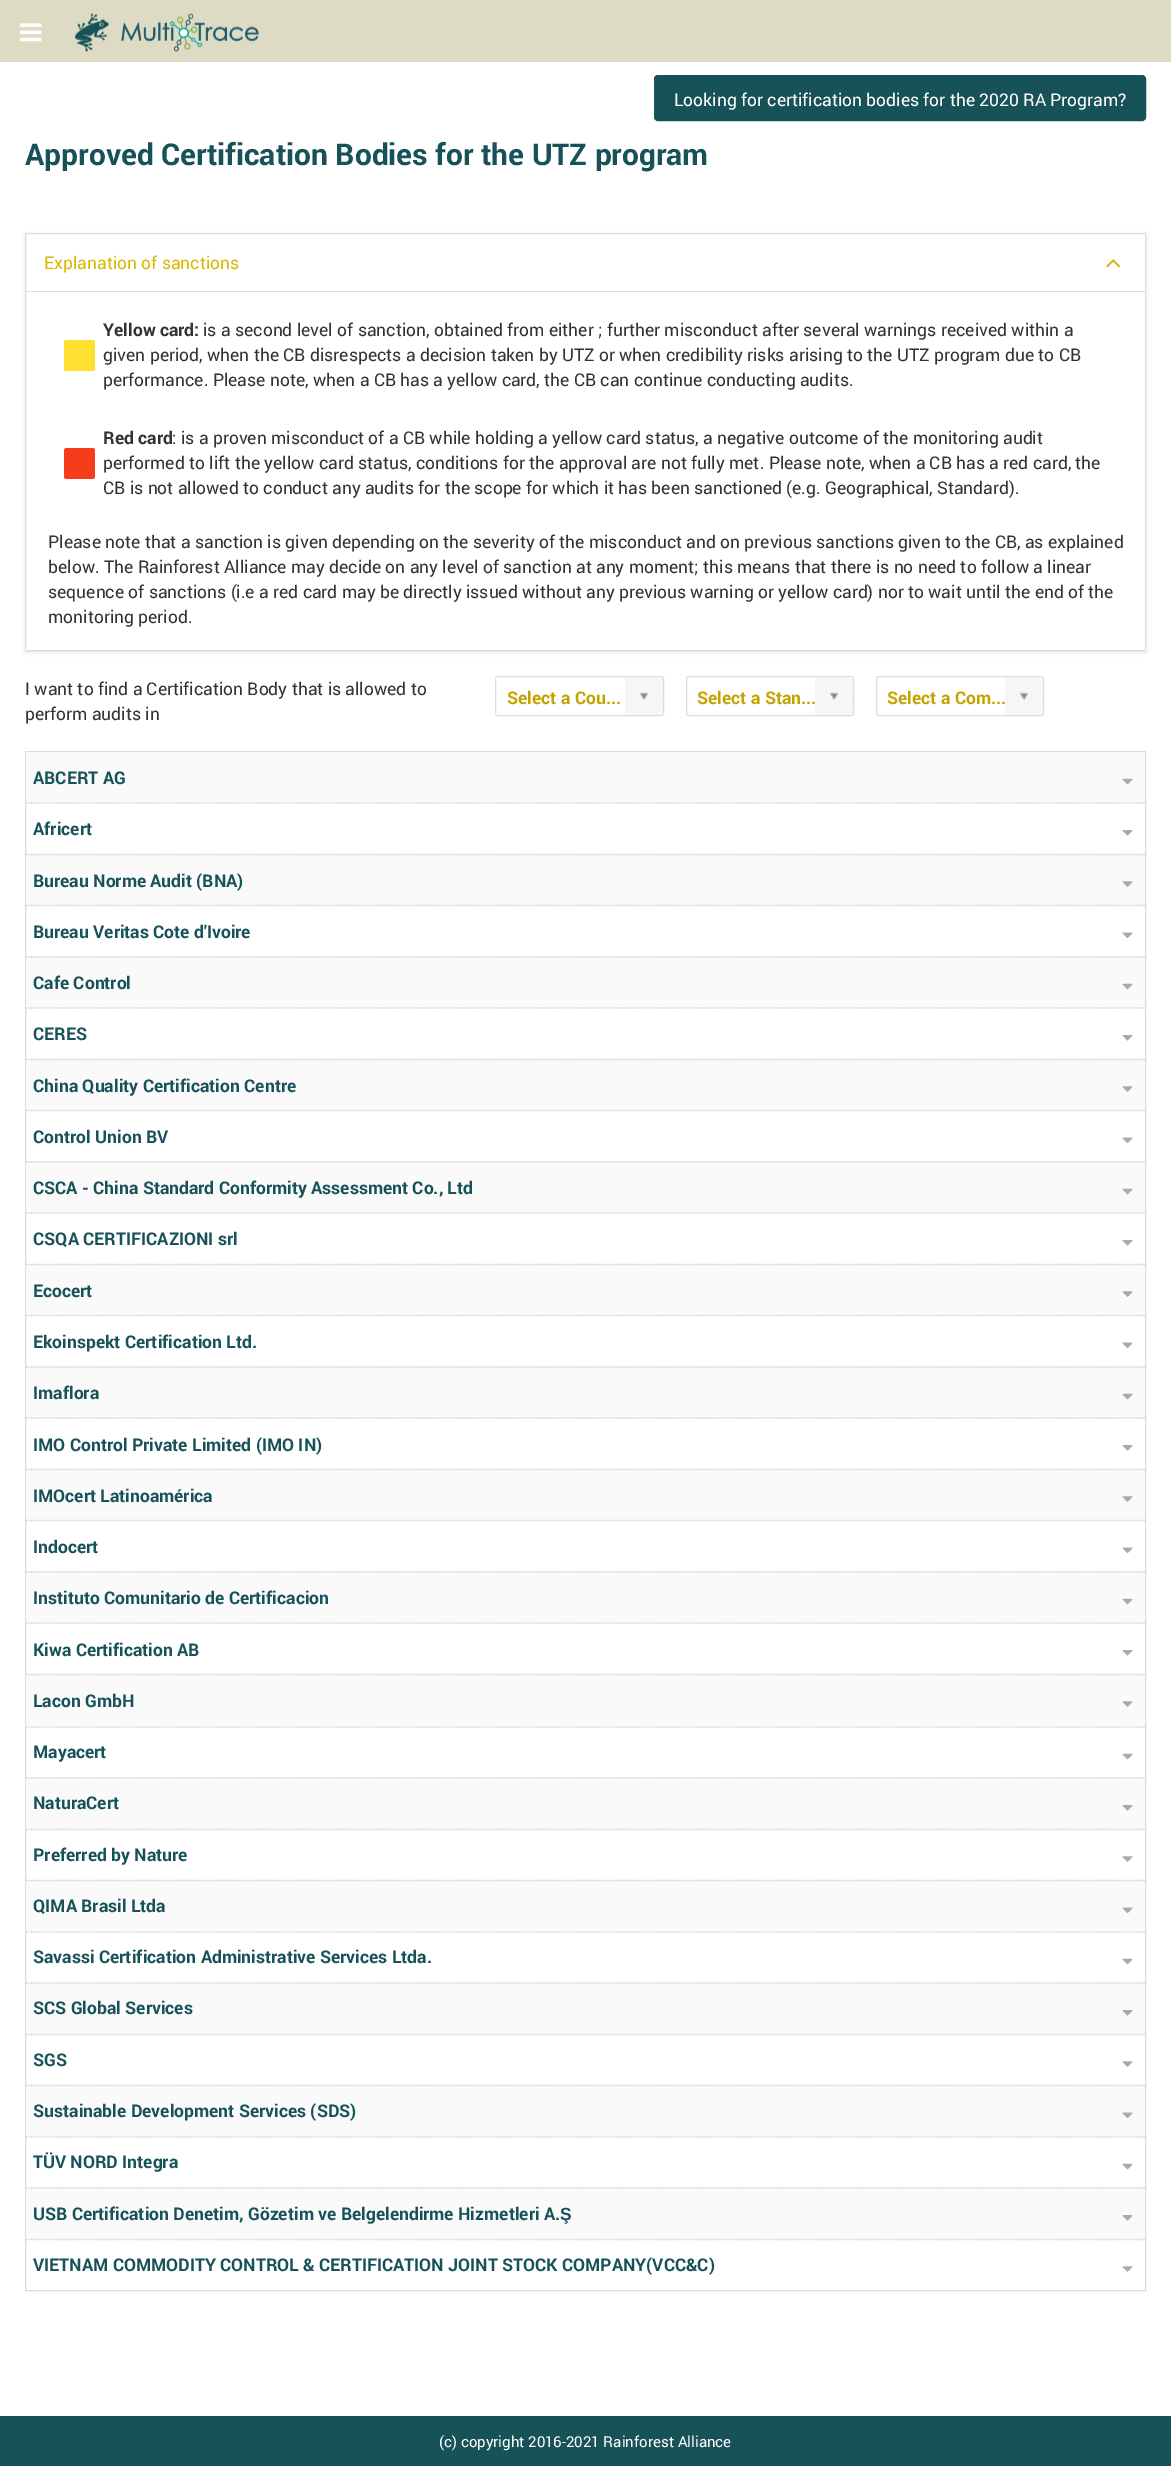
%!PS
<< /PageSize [1171 2488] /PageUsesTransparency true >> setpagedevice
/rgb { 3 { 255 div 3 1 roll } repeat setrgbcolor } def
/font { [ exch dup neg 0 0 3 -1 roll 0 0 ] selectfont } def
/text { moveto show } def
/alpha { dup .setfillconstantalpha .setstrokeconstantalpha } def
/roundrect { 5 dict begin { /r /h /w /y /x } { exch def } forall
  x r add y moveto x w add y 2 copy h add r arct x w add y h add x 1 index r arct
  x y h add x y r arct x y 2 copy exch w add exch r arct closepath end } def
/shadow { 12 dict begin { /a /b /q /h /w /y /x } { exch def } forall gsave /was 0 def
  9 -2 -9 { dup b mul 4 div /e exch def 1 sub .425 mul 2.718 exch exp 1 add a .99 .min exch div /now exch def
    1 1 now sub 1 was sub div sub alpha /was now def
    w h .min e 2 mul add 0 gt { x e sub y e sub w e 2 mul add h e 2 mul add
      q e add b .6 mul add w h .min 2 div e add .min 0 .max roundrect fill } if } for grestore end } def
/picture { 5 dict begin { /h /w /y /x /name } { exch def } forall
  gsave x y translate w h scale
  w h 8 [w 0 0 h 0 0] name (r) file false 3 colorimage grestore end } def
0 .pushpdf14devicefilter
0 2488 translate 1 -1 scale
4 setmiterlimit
255 255 255 rgb
0 0 1171 2488 rectfill
222 219 196 rgb
0 0 1171 62 rectfill
(img_01.rgb) 20 23 22 19 picture
(img_02.rgb) 75 13 34 39 picture
(img_03.rgb) 121 13 138 39 picture
23 82 89 rgb
654.5 75.5 491 45 3.5 roundrect gsave fill grestore
stroke
gsave
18 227 moveto 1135 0 rlineto 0 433 rlineto -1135 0 rlineto closepath 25 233 moveto 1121 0 rlineto 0 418 rlineto -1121 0 rlineto closepath eoclip newpath
211 211 211 rgb
25 234 1121 419 0 2 0.5 shadow
grestore
221 221 221 rgb
25.5 233.5 1120 417 rectstroke
(img_04.rgb) 1106 259 15 9 picture
26 291 1119 1 rectfill
255 224 48 rgb
64 340 31 31 2.5 roundrect fill
245 61 28 rgb
64 448 31 31 2.5 roundrect fill
221 221 221 rgb
495.5 676.5 168 39 2 roundrect stroke
246 246 246 rgb
625 678 moveto 35.5 0 rlineto 1.5 0 2.5 1 2.5 2.5 rcurveto 0 32 rlineto 0 1.5 -1 2.5 -2.5 2.5 rcurveto -35.5 0 rlineto closepath fill
(img_05.rgb) 640 692 23 8 picture
221 221 221 rgb
686.5 676.5 167 39 2 roundrect stroke
246 246 246 rgb
815 678 moveto 35.5 0 rlineto 1.5 0 2.5 1 2.5 2.5 rcurveto 0 32 rlineto 0 1.5 -1 2.5 -2.5 2.5 rcurveto -35.5 0 rlineto closepath fill
(img_06.rgb) 830 692 23 8 picture
221 221 221 rgb
876.5 676.5 167 39 2 roundrect stroke
246 246 246 rgb
1005 678 moveto 35.5 0 rlineto 1.5 0 2.5 1 2.5 2.5 rcurveto 0 32 rlineto 0 1.5 -1 2.5 -2.5 2.5 rcurveto -35.5 0 rlineto closepath fill
(img_05.rgb) 1020 692 23 8 picture
218 219 222 rgb
25.5 751.5 1120 1539 rectstroke
250 250 250 rgb
26 753 1119 50 rectfill
(img_07.rgb) 1122 778 11 7 picture
204 204 204 rgb
1.2 setlinewidth
[1.25 1.25] 0 setdash
26 803 moveto 1119 0 rlineto stroke
(img_08.rgb) 1122 830 11 6 picture
250 250 250 rgb
26 854 1119 51 rectfill
204 204 204 rgb
26 854.5 moveto 1119 0 rlineto stroke
(img_09.rgb) 1122 881 11 6 picture
26 905.5 moveto 1119 0 rlineto stroke
(img_10.rgb) 1122 932 11 6 picture
250 250 250 rgb
26 956 1119 52 rectfill
204 204 204 rgb
26 957 moveto 1119 0 rlineto stroke
(img_07.rgb) 1122 983 11 7 picture
26 1008 moveto 1119 0 rlineto stroke
(img_08.rgb) 1122 1035 11 6 picture
250 250 250 rgb
26 1059 1119 51 rectfill
204 204 204 rgb
26 1059.5 moveto 1119 0 rlineto stroke
(img_09.rgb) 1122 1086 11 6 picture
26 1110.5 moveto 1119 0 rlineto stroke
(img_10.rgb) 1122 1137 11 6 picture
250 250 250 rgb
26 1161 1119 52 rectfill
204 204 204 rgb
26 1162 moveto 1119 0 rlineto stroke
(img_07.rgb) 1122 1188 11 7 picture
26 1213 moveto 1119 0 rlineto stroke
(img_08.rgb) 1122 1240 11 6 picture
250 250 250 rgb
26 1264 1119 51 rectfill
204 204 204 rgb
26 1264.5 moveto 1119 0 rlineto stroke
(img_09.rgb) 1122 1291 11 6 picture
26 1315.5 moveto 1119 0 rlineto stroke
(img_10.rgb) 1122 1342 11 6 picture
250 250 250 rgb
26 1366 1119 52 rectfill
204 204 204 rgb
26 1367 moveto 1119 0 rlineto stroke
(img_07.rgb) 1122 1393 11 7 picture
26 1418 moveto 1119 0 rlineto stroke
(img_08.rgb) 1122 1445 11 6 picture
250 250 250 rgb
26 1469 1119 51 rectfill
204 204 204 rgb
26 1469.5 moveto 1119 0 rlineto stroke
(img_09.rgb) 1122 1496 11 6 picture
26 1520.5 moveto 1119 0 rlineto stroke
(img_10.rgb) 1122 1547 11 6 picture
250 250 250 rgb
26 1571 1119 52 rectfill
204 204 204 rgb
26 1572 moveto 1119 0 rlineto stroke
(img_07.rgb) 1122 1598 11 7 picture
26 1623 moveto 1119 0 rlineto stroke
(img_08.rgb) 1122 1650 11 6 picture
250 250 250 rgb
26 1674 1119 52 rectfill
204 204 204 rgb
26 1674.5 moveto 1119 0 rlineto stroke
(img_09.rgb) 1122 1701 11 6 picture
26 1727 moveto 1119 0 rlineto stroke
(img_11.rgb) 1122 1753 11 7 picture
250 250 250 rgb
26 1778 1119 51 rectfill
204 204 204 rgb
26 1778 moveto 1119 0 rlineto stroke
(img_12.rgb) 1122 1805 11 6 picture
26 1829.5 moveto 1119 0 rlineto stroke
(img_13.rgb) 1122 1856 11 6 picture
250 250 250 rgb
26 1880 1119 51 rectfill
204 204 204 rgb
26 1880.5 moveto 1119 0 rlineto stroke
(img_14.rgb) 1122 1907 11 6 picture
26 1932 moveto 1119 0 rlineto stroke
(img_11.rgb) 1122 1958 11 7 picture
250 250 250 rgb
26 1983 1119 51 rectfill
204 204 204 rgb
26 1983 moveto 1119 0 rlineto stroke
(img_12.rgb) 1122 2010 11 6 picture
26 2034.5 moveto 1119 0 rlineto stroke
(img_13.rgb) 1122 2061 11 6 picture
250 250 250 rgb
26 2085 1119 51 rectfill
204 204 204 rgb
26 2085.5 moveto 1119 0 rlineto stroke
(img_14.rgb) 1122 2112 11 6 picture
26 2137 moveto 1119 0 rlineto stroke
(img_11.rgb) 1122 2163 11 7 picture
250 250 250 rgb
26 2188 1119 51 rectfill
204 204 204 rgb
26 2188 moveto 1119 0 rlineto stroke
(img_12.rgb) 1122 2215 11 6 picture
26 2239.5 moveto 1119 0 rlineto stroke
(img_13.rgb) 1122 2266 11 6 picture
23 82 89 rgb
0 2416 1171 50 rectfill
/Roboto-Regular 17.5 font
255 255 255 rgb
(Looking for certification bodies for the 2020 RA Program?) 674 106 text
/Roboto-Bold 30 font
23 82 89 rgb
(Approved Certification Bodies for the UTZ program) 25 165 text
/Roboto-Regular 17.5 font
218 183 2 rgb
(Explanation of sanctions) 44 269 text
/Roboto-Bold 17.5 font
51 51 51 rgb
(Yellow card:) 103 336 text
/Roboto-Regular 17.5 font
(is a second level of sanction, obtained from either ; further misconduct after several warnings received within a) 203 336 text
(given period, when the CB disrespects a decision taken by UTZ or when credibility risks arising to the UTZ program due to CB) 103 361 text
(performance. Please note, when a CB has a yellow card, the CB can continue conducting audits.) 103 386 text
/Roboto-Bold 17.5 font
(Red card) 103 444 text
/Roboto-Regular 17.5 font
(: is a proven misconduct of a CB while holding a yellow card status, a negative outcome of the monitoring audit) 172 444 text
(performed to lift the yellow card status, conditions for the approval are not fully met. Please note, when a CB has a red card, the) 103 469 text
(CB is not allowed to conduct any audits for the scope for which it has been sanctioned \(e.g. Geographical, Standard\).) 103 494 text
(Please note that a sanction is given depending on the severity of the misconduct and on previous sanctions given to the CB, as explained) 48 548 text
(below. The Rainforest Alliance may decide on any level of sanction at any moment; this means that there is no need to follow a linear) 48 573 text
(sequence of sanctions \(i.e a red card may be directly issued without any previous warning or yellow card\) nor to wait until the end of the) 48 598 text
(monitoring period.) 48 623 text
(I want to find a Certification Body that is allowed to) 25 695 text
(perform audits in) 25 720 text
/Roboto-Bold 17.5 font
195 163 0 rgb
(Select a Cou...) 507 704 text
(Select a Stan...) 697 704 text
(Select a Com...) 887 704 text
23 82 89 rgb
(ABCERT AG) 33 784 text
(Africert) 33 835 text
(Bureau Norme Audit \(BNA\)) 33 887 text
(Bureau Veritas Cote d'Ivoire) 33 938 text
(Cafe Control) 33 989 text
(CERES) 33 1040 text
(China Quality Certification Centre) 33 1092 text
(Control Union BV) 33 1143 text
(CSCA - China Standard Conformity Assessment Co., Ltd) 33 1194 text
(CSQA CERTIFICAZIONI srl) 33 1245 text
(Ecocert) 33 1297 text
(Ekoinspekt Certification Ltd.) 33 1348 text
(Imaflora) 33 1399 text
(IMO Control Private Limited \(IMO IN\)) 33 1451 text
(IMOcert Latinoamérica) 33 1502 text
(Indocert) 33 1553 text
(Instituto Comunitario de Certificacion) 33 1604 text
(Kiwa Certification AB) 33 1656 text
(Lacon GmbH) 33 1707 text
(Mayacert) 33 1758 text
(NaturaCert) 33 1809 text
(Preferred by Nature) 33 1861 text
(QIMA Brasil Ltda) 33 1912 text
(Savassi Certification Administrative Services Ltda.) 33 1963 text
(SCS Global Services) 33 2014 text
(SGS) 33 2066 text
(Sustainable Development Services \(SDS\)) 33 2117 text
(TÜV NORD Integra) 33 2168 text
(USB Certification Denetim, Gözetim ve Belgelendirme Hizmetleri A.) 33 2220 text
/LiberationSans-Bold 17.5 font
(Ş) 560 2220 text
/Roboto-Bold 17.5 font
(VIETNAM COMMODITY CONTROL & CERTIFICATION JOINT STOCK COMPANY\(VCC&C\)) 33 2271 text
/Roboto-Regular 15 font
255 255 255 rgb
(\(c\) copyright 2016-2021 Rainforest Alliance) 439 2447 text
.poppdf14devicefilter showpage
